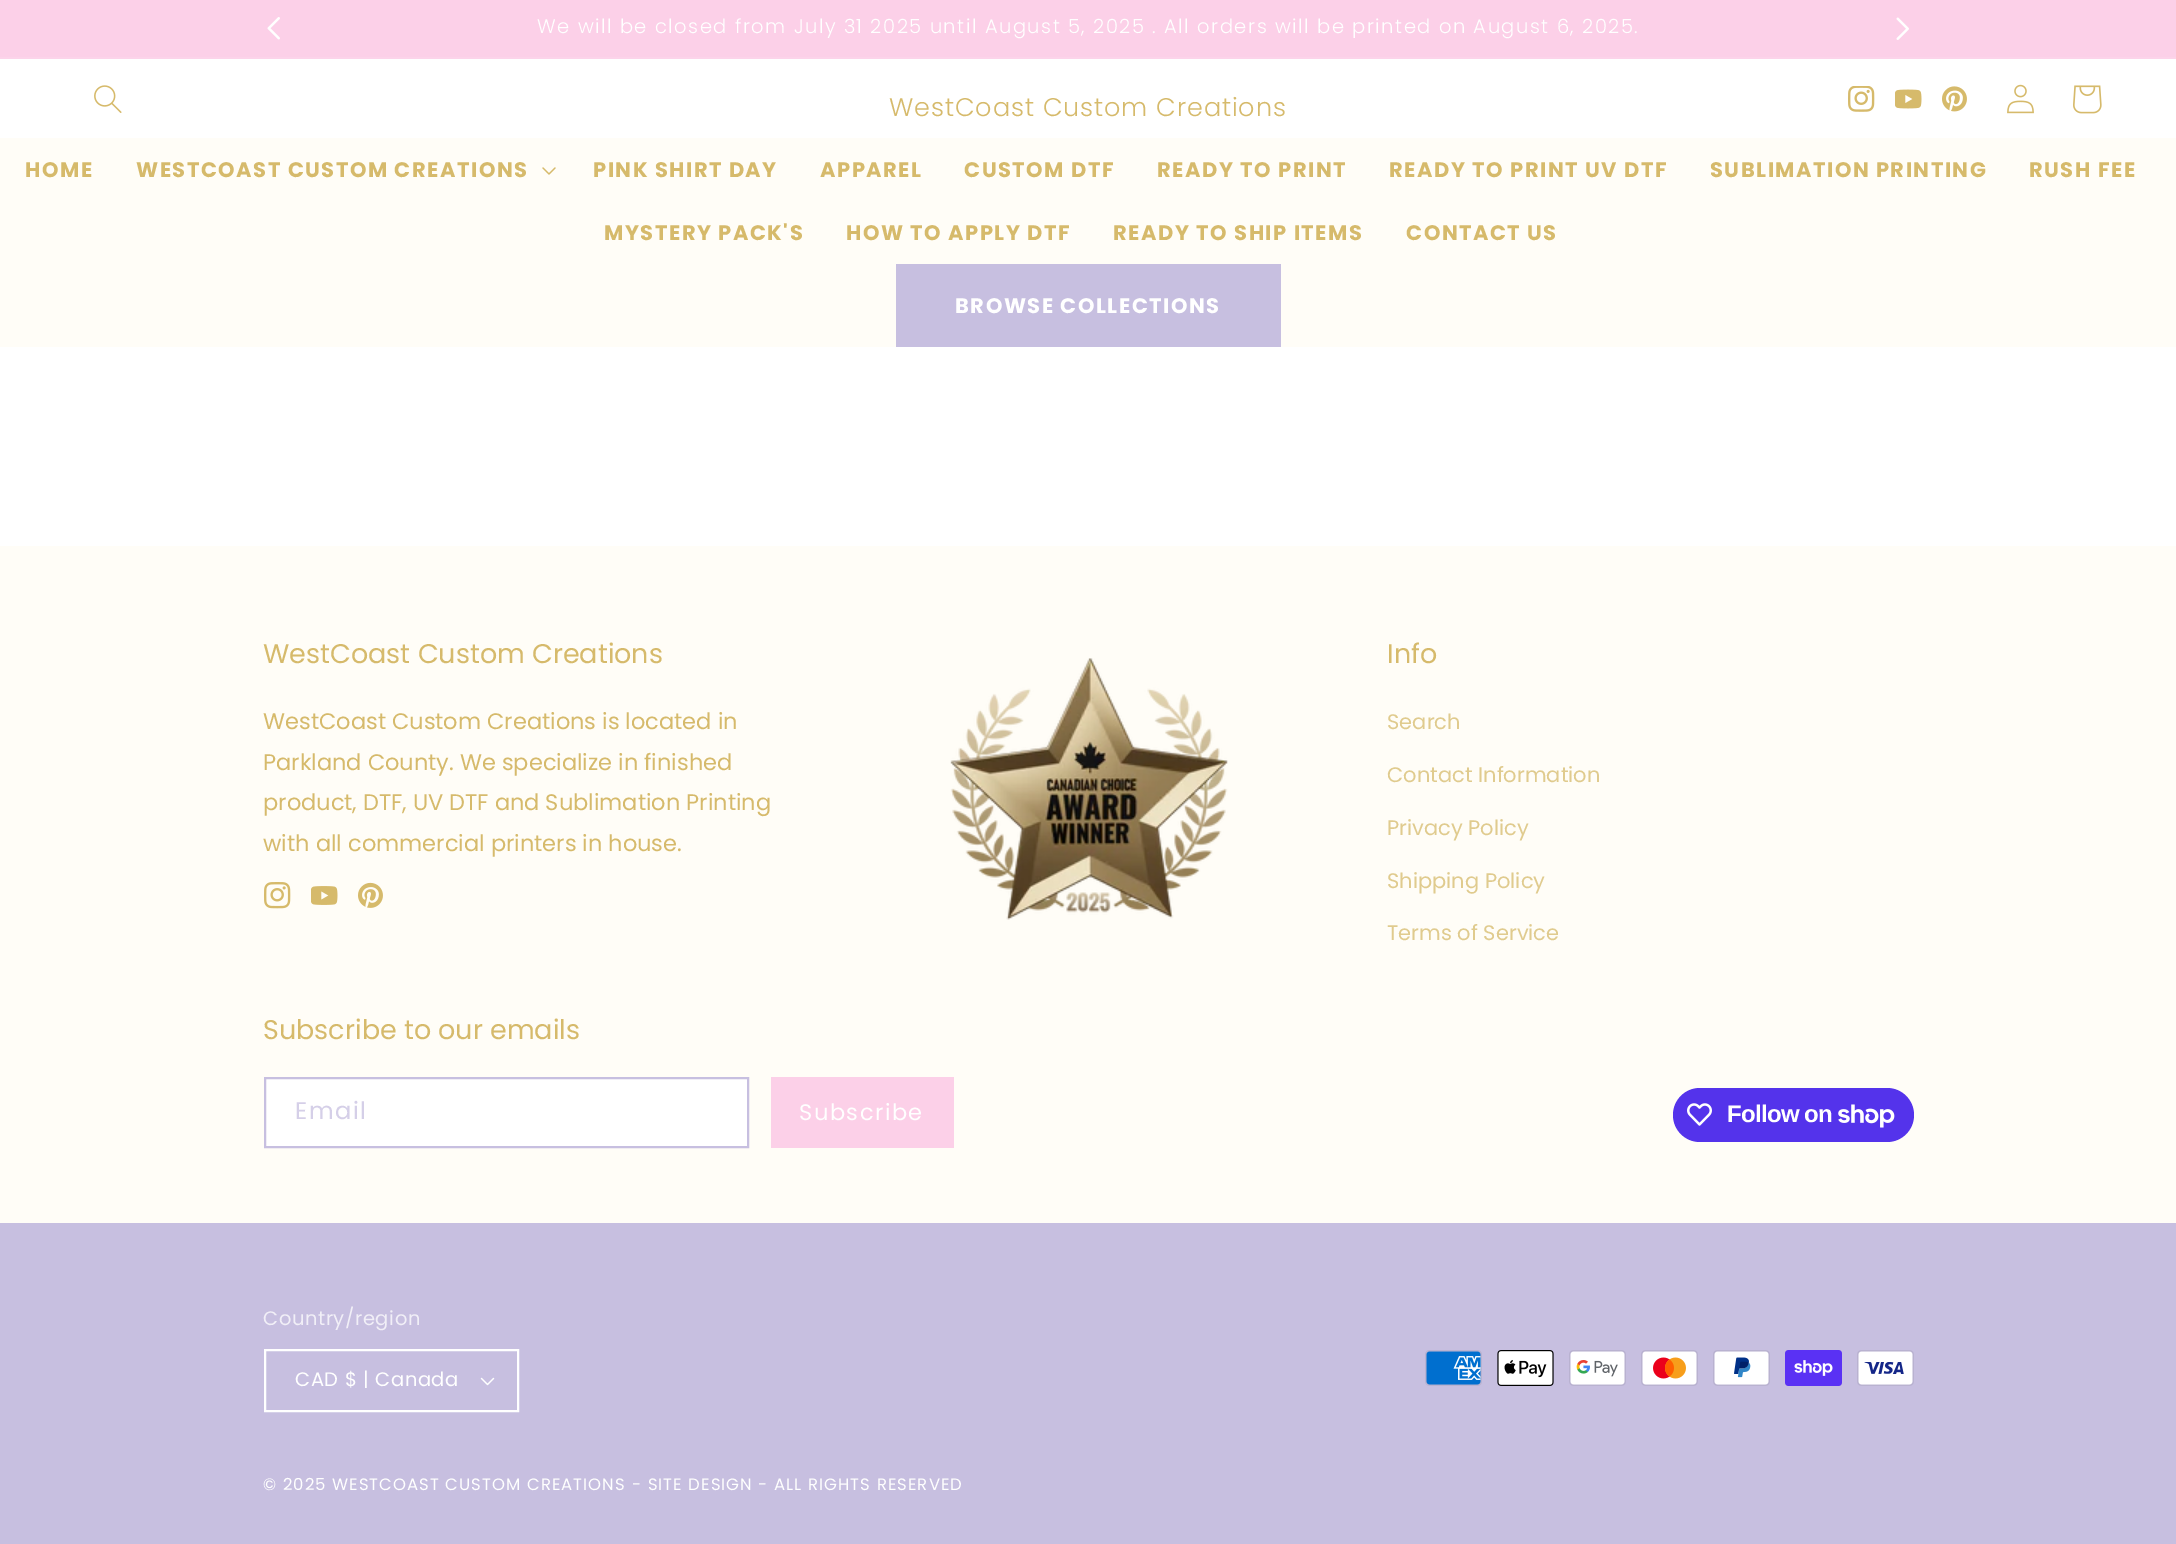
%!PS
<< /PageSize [2176 1544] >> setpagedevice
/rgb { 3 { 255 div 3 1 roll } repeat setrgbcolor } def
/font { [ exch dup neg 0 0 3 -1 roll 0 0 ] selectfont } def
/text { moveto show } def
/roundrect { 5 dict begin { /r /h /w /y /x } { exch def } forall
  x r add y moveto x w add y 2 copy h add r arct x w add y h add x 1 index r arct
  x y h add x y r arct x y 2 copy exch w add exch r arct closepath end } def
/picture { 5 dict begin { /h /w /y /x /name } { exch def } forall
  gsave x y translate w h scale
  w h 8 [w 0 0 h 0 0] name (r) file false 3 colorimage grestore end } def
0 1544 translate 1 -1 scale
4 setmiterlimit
255 255 255 rgb
0 0 2176 1544 rectfill
252 208 232 rgb
0 0 2176 57 rectfill
252 212 234 rgb
0 57 2176 2 rectfill
(img_01.rgb) 267 17 13 23 picture
(img_02.rgb) 1896 17 13 23 picture
(img_03.rgb) 94 85 28 28 picture
(img_04.rgb) 1848 86 27 26 picture
(img_05.rgb) 1895 89 27 20 picture
(img_06.rgb) 1942 86 25 26 picture
(img_07.rgb) 2007 84 27 30 picture
(img_08.rgb) 2073 85 29 29 picture
255 253 247 rgb
0 138 2176 209 rectfill
(img_09.rgb) 542 167 14 8 picture
199 191 224 rgb
896 264 385 83 rectfill
255 253 247 rgb
0 546 2176 677 rectfill
(img_10.rgb) 264 882 27 27 picture
(img_11.rgb) 311 886 27 19 picture
(img_12.rgb) 358 882 25 26 picture
(img_13.rgb) 950 658 278 262 picture
255 255 255 rgb
266 1079 481 67 rectfill
199 191 224 rgb
2 setlinewidth
265 1078 483 69 rectstroke
252 208 232 rgb
771 1077 183 71 rectfill
84 51 235 rgb
1673 1088 241 54 27 roundrect fill
(img_14.rgb) 1687 1103 25 23 picture
(img_15.rgb) 1838 1104 57 24 picture
199 191 224 rgb
0 1223 2176 321 rectfill
(img_16.rgb) 480 1377 15 9 picture
255 255 255 rgb
265 1350 253 61 rectstroke
(img_17.rgb) 1425 1350 57 36 picture
(img_18.rgb) 1497 1350 57 36 picture
(img_19.rgb) 1569 1350 57 36 picture
(img_20.rgb) 1641 1350 57 36 picture
(img_21.rgb) 1713 1350 57 36 picture
(img_22.rgb) 1785 1350 57 36 picture
(img_23.rgb) 1857 1350 57 36 picture
/Poppins-Light 19.5 font
537 33 moveto 1.5 0 (We will be closed from July 31 2025 until August 5, 2025 . All orders will be printed on August 6, 2025.) ashow
/Poppins-Light 25.5 font
214 186 107 rgb
889 116 moveto 0.9 0 (WestCoast Custom Creations) ashow
/Poppins-Bold 21 font
25 177 moveto 1.5 0 (HOME) ashow
136 177 moveto 1.5 0 (WESTCOAST CUSTOM CREATIONS) ashow
593 177 moveto 1.5 0 (PINK SHIRT DAY) ashow
820 177 moveto 1.5 0 (APPAREL) ashow
964 177 moveto 1.5 0 (CUSTOM DTF) ashow
1157 177 moveto 1.5 0 (READY TO PRINT) ashow
1389 177 moveto 1.5 0 (READY TO PRINT UV DTF) ashow
1710 177 moveto 1.5 0 (SUBLIMATION PRINTING) ashow
2029 177 moveto 1.5 0 (RUSH FEE) ashow
604 240 moveto 1.5 0 (MYSTERY PACK'S) ashow
846 240 moveto 1.5 0 (HOW TO APPLY DTF) ashow
1113 240 moveto 1.5 0 (READY TO SHIP ITEMS) ashow
1406 240 moveto 1.5 0 (CONTACT US) ashow
255 255 255 rgb
955 313 moveto 1.5 0 (BROWSE COLLECTIONS) ashow
/Poppins-Regular 27 font
214 186 107 rgb
(WestCoast Custom Creations) 263 663 text
/Poppins-Regular 22.5 font
(WestCoast Custom Creations is located in) 263 729 text
(Parkland County. We specialize in finished) 263 770 text
(product, DTF, UV DTF and Sublimation Printing) 263 810 text
(with all commercial printers in house.) 263 851 text
/Poppins-Regular 27 font
(Info) 1387 663 text
/Poppins-Regular 21 font
224 203 142 rgb
(Search) 1387 729 text
(Contact Information) 1387 782 text
(Privacy Policy) 1387 835 text
(Shipping Policy) 1387 888 text
(Terms of Service) 1387 940 text
/Poppins-Regular 27 font
214 186 107 rgb
(Subscribe to our emails) 263 1039 text
/Poppins-Regular 24 font
213 207 232 rgb
295 1119 moveto 1.5 0 (Email) ashow
/Poppins-Regular 22.5 font
255 255 255 rgb
799 1120 moveto 1.5 0 (Subscribe) ashow
/LiberationSans-Bold 24 font
1727 1122 moveto -0.75 0 (Follow on) ashow
/Poppins-Regular 19.5 font
241 239 247 rgb
263 1325 moveto 0.6 0 (Country/region) ashow
255 255 255 rgb
295 1386 moveto 0.6 0 (CAD $ | Canada) ashow
/Poppins-Regular 16.5 font
263 1490 moveto 1.05 0 (© 2025 WESTCOAST CUSTOM CREATIONS) ashow
632 1490 moveto 1.05 0 (- SITE DESIGN - ALL RIGHTS RESERVED) ashow
showpage
